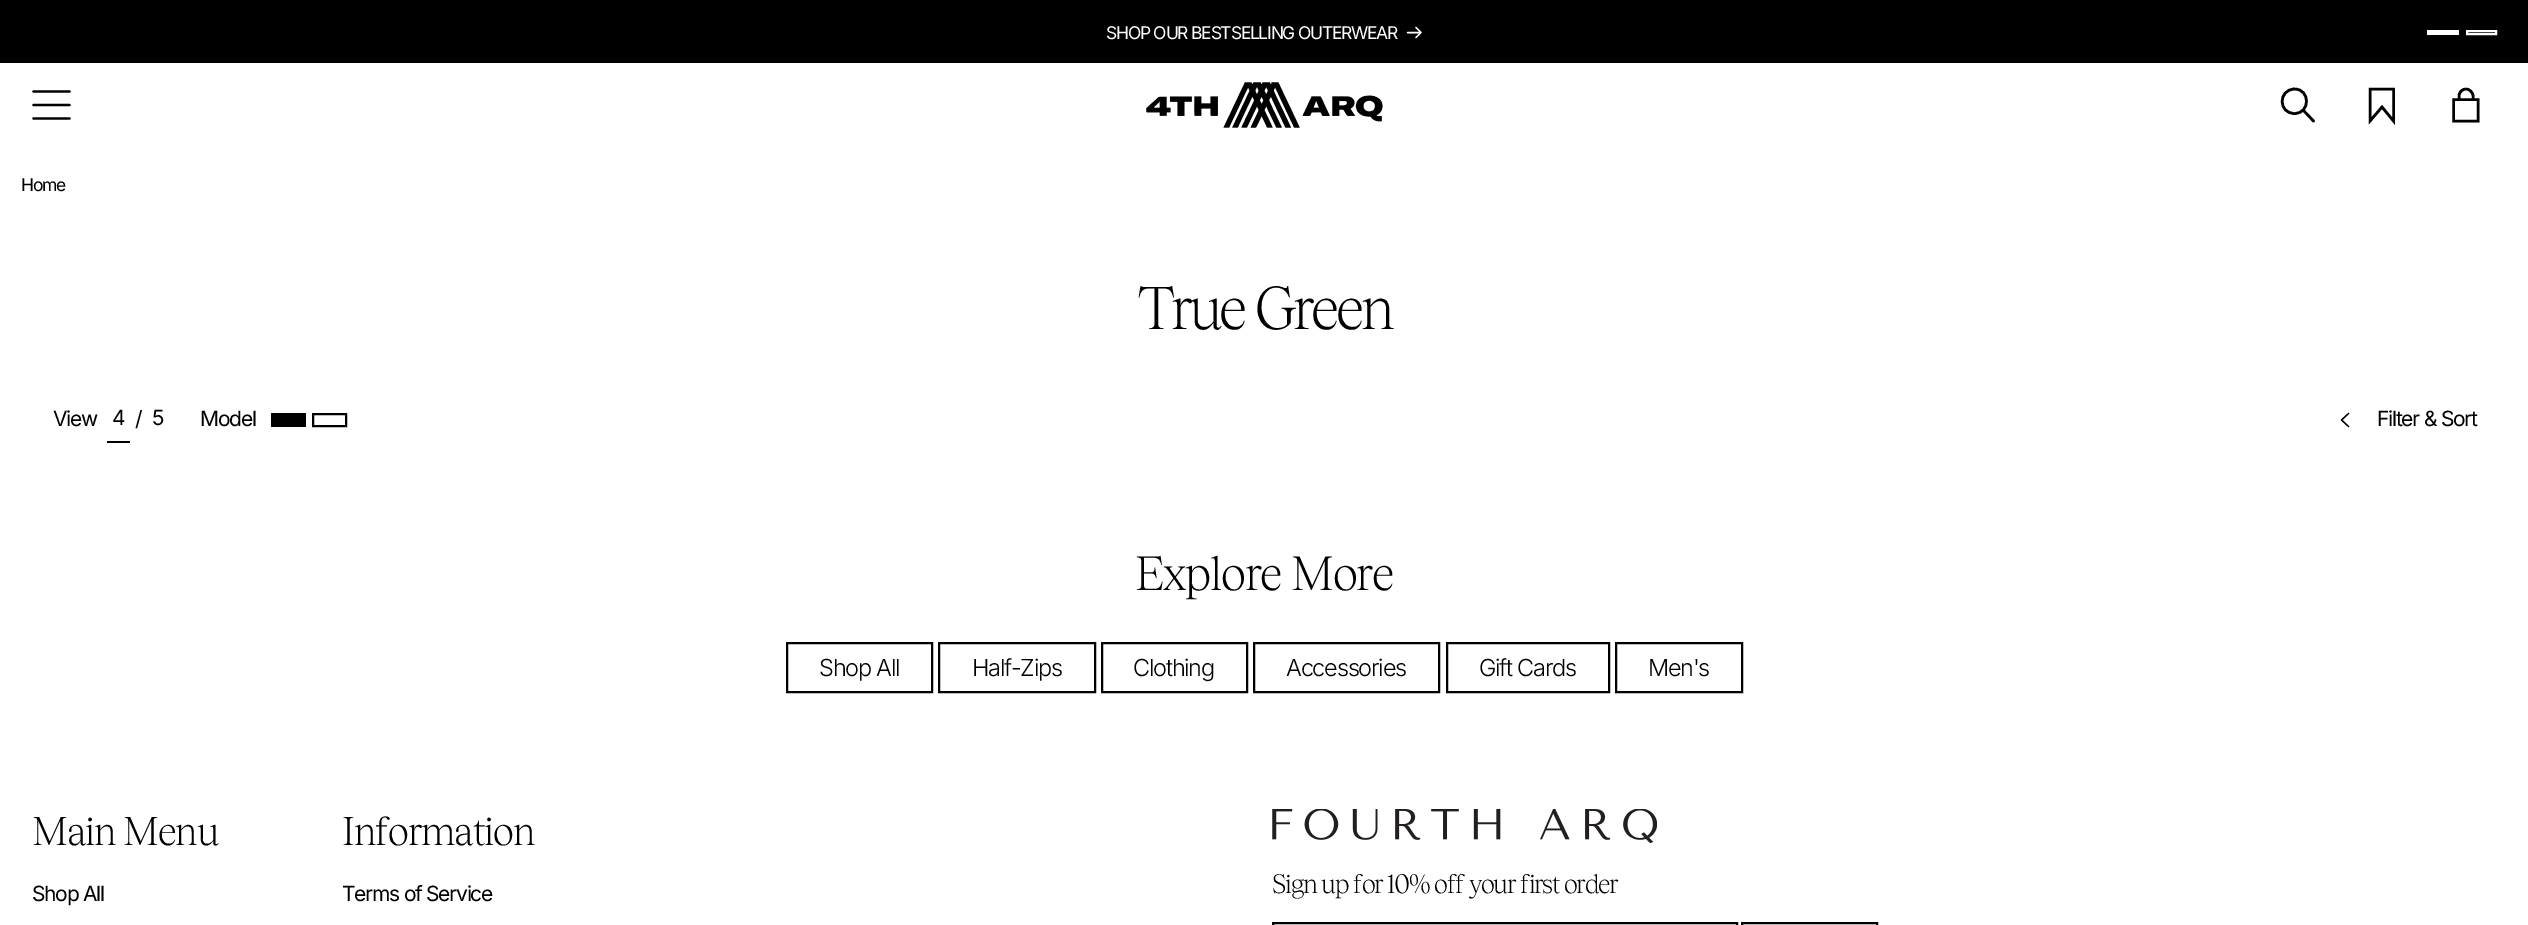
%!PS
<< /PageSize [2528 925] >> setpagedevice
/rgb { 3 { 255 div 3 1 roll } repeat setrgbcolor } def
/font { [ exch dup neg 0 0 3 -1 roll 0 0 ] selectfont } def
/picture { 5 dict begin { /h /w /y /x /name } { exch def } forall
  gsave x y translate w h scale
  w h 8 [w 0 0 h 0 0] name (r) file false 3 colorimage grestore end } def
0 925 translate 1 -1 scale
4 setmiterlimit
255 255 255 rgb
0 0 2528 925 rectfill
0 0 0 rgb
0 0 2528 63 rectfill
255 255 255 rgb
1.4 setlinewidth
1 setlinecap
1 setlinejoin
1407.5 32.5 moveto 13.5 0 rlineto 1421 32.5 moveto -5 -5 rlineto 1421 32.5 moveto -5 5 rlineto stroke
2427 30 32 5 rectfill
2 setlinewidth
0 setlinecap
0 setlinejoin
2467 31 29 3 rectstroke
0 0 0 rgb
2.2 setlinewidth
1 setlinecap
33.5 105 moveto 36 0 rlineto 33.5 91.5 moveto 36 0 rlineto 33.5 118.5 moveto 36 0 rlineto stroke
(img_01.rgb) 1146 82 237 46 picture
2.6 setlinewidth
2303 110 moveto 10.5 11 rlineto 2294.5 113.5 moveto -16.5 0 -16.5 -24 0 -24.5 rcurveto 16 0 16 24.5 0 24.5 rcurveto closepath stroke
0 setlinecap
2393.5 89 moveto -23.5 0 rlineto 0 32 rlineto 12 -14 rlineto 11.5 14 rlineto closepath stroke
2453.5 121 moveto 0 -21.5 rlineto 24.5 0 rlineto 0 21.5 rlineto closepath 2459 100 moveto 0 -4 rlineto 0 -3.5 3 -7 7 -7 rcurveto 3.5 0 7 3.5 7 7 rcurveto 0 4 rlineto stroke
107 441 23 2 rectfill
271 413 35 14 rectfill
2 setlinewidth
313 414 33 12 rectstroke
1.3 setlinewidth
1 setlinecap
1 setlinejoin
2348.5 426.5 moveto -7 -6.5 rlineto 7 -6.5 rlineto stroke
2 setlinewidth
0 setlinecap
0 setlinejoin
787 643 145 49 rectstroke
939 643 156 49 rectstroke
1102 643 145 49 rectstroke
1254 643 185 49 rectstroke
1447 643 162 49 rectstroke
1616 643 126 49 rectstroke
(img_02.rgb) 1272 809 385 35 picture
1273 923 464 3 rectstroke
1742 923 135 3 rectstroke
/Inter-Regular 17.5 font
255 255 255 rgb
1106 39 moveto -1.25 0 (SHOP OUR BESTSELLING OUTERWEAR) ashow
0 0 0 rgb
21 191 moveto -1.25 0 (Home) ashow
/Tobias-Light 59.5 font
1138 329 moveto -3.5 0 (True Green) ashow
/Inter-Regular 21 font
53 426 moveto -1.25 0 (View) ashow
112 425 moveto -1.25 0 (4) ashow
135 426 moveto -1.25 0 (/) ashow
152 425 moveto -1.25 0 (5) ashow
200 426 moveto -1.25 0 (Model) ashow
2377 426 moveto -1.25 0 (Filter & Sort) ashow
/Tobias-Light 47.25 font
1135 590 moveto -1.25 0 (Explore More) ashow
/Inter-Light 23.5 font
819 676 moveto -1.25 0 (Shop All) ashow
972 676 moveto -1.25 0 (Half-Zips) ashow
1133 676 moveto -1.25 0 (Clothing) ashow
1286 676 moveto -1.25 0 (Accessories) ashow
1479 676 moveto -1.25 0 (Gift Cards) ashow
1648 676 moveto -1.25 0 (Men's) ashow
/Tobias-Light 39.5 font
32 845 moveto -1.25 0 (Main Menu) ashow
/Inter-Regular 21 font
32 901 moveto -1.25 0 (Shop All) ashow
/Tobias-Light 39.5 font
342 845 moveto -1.25 0 (Information) ashow
/Inter-Regular 21 font
342 901 moveto -1.25 0 (Terms of Service) ashow
/Tobias-Light 26.25 font
1272 893 moveto -1.25 0 (Sign up for 10% off your first order) ashow
showpage
